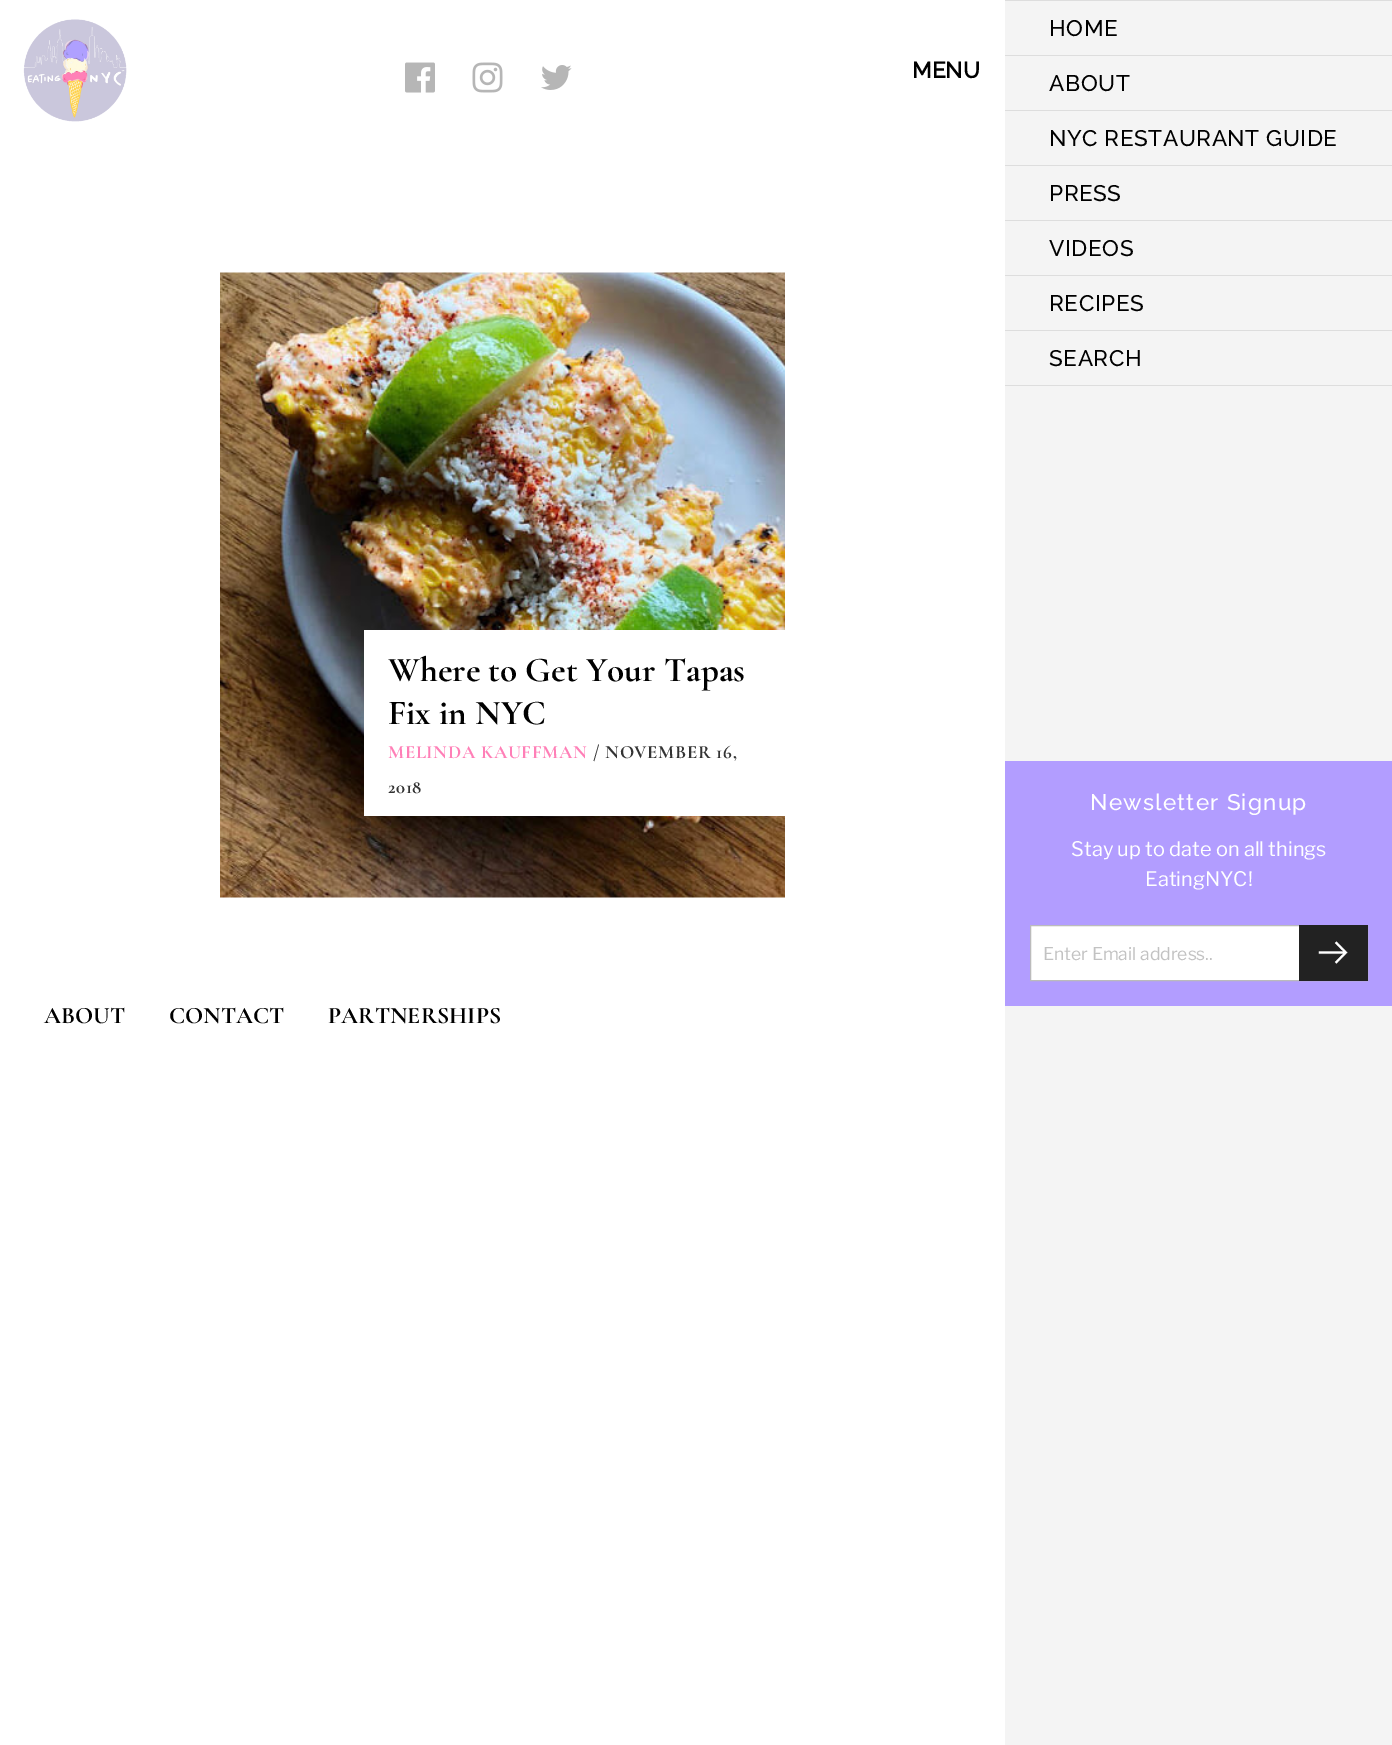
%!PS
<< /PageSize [1392 1745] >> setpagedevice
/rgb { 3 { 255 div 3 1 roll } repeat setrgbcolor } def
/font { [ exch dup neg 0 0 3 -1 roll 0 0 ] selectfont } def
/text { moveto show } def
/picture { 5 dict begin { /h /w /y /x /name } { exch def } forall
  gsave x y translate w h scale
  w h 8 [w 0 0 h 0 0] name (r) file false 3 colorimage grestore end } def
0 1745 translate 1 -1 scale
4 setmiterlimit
255 255 255 rgb
0 0 1392 1745 rectfill
(img_01.rgb) 23 19 104 103 picture
(img_02.rgb) 405 62 30 31 picture
(img_03.rgb) 472 62 31 31 picture
(img_04.rgb) 541 65 31 25 picture
(img_05.rgb) 220 272 565 626 picture
364 630 421 186 rectfill
244 244 244 rgb
1005 1 387 1744 rectfill
221 221 221 rgb
1005 0 387 1 rectfill
1005 55 387 1 rectfill
1005 110 387 1 rectfill
1005 165 387 1 rectfill
1005 220 387 1 rectfill
1005 275 387 1 rectfill
1005 330 387 1 rectfill
1005 385 387 1 rectfill
178 157 255 rgb
1005 761 387 245 rectfill
255 255 255 rgb
1031 926 268 54 rectfill
187 187 187 rgb
1030.5 925.5 337 55 rectstroke
34 34 34 rgb
1299 925 69 56 rectfill
(img_06.rgb) 1318 941 30 23 picture
/Raleway-Bold 22.5 font
0 0 0 rgb
(MENU) 912 78 text
/CormorantGaramond-Bold 35 font
(Where to Get Your Tapas) 388 681 text
(Fix in NYC) 388 724 text
/CormorantGaramond-Bold 18.75 font
255 127 183 rgb
388 758 moveto 0.6 0 (MELINDA KAUFFMAN) ashow
51 51 51 rgb
593 758 moveto 0.6 0 (/ NOVEMBER 16,) ashow
388 793 moveto 0.6 0 (2018) ashow
/Raleway-Thin 22.5 font
0 0 0 rgb
1049 36 moveto 0.6 0 (HOME) ashow
1049 91 moveto 0.6 0 (ABOUT) ashow
1049 146 moveto 0.6 0 (NYC RESTAURANT GUIDE) ashow
1049 201 moveto 0.6 0 (PRESS) ashow
1049 256 moveto 0.6 0 (VIDEOS) ashow
1049 311 moveto 0.6 0 (RECIPES) ashow
1049 366 moveto 0.6 0 (SEARCH) ashow
255 255 255 rgb
1090 810 moveto 1.25 0 (Newsletter Signup) ashow
/LibreFranklin-Regular 20 font
(Stay up to date on all things) 1071 856 text
(EatingNYC!) 1145 886 text
/LibreFranklin-Regular 17.5 font
194 194 194 rgb
(Enter Email address..) 1043 960 text
/CormorantGaramond-Bold 23.75 font
0 0 0 rgb
(ABOUT) 44 1023 text
(CONTACT) 169 1023 text
(PARTNERSHIPS) 328 1023 text
showpage
